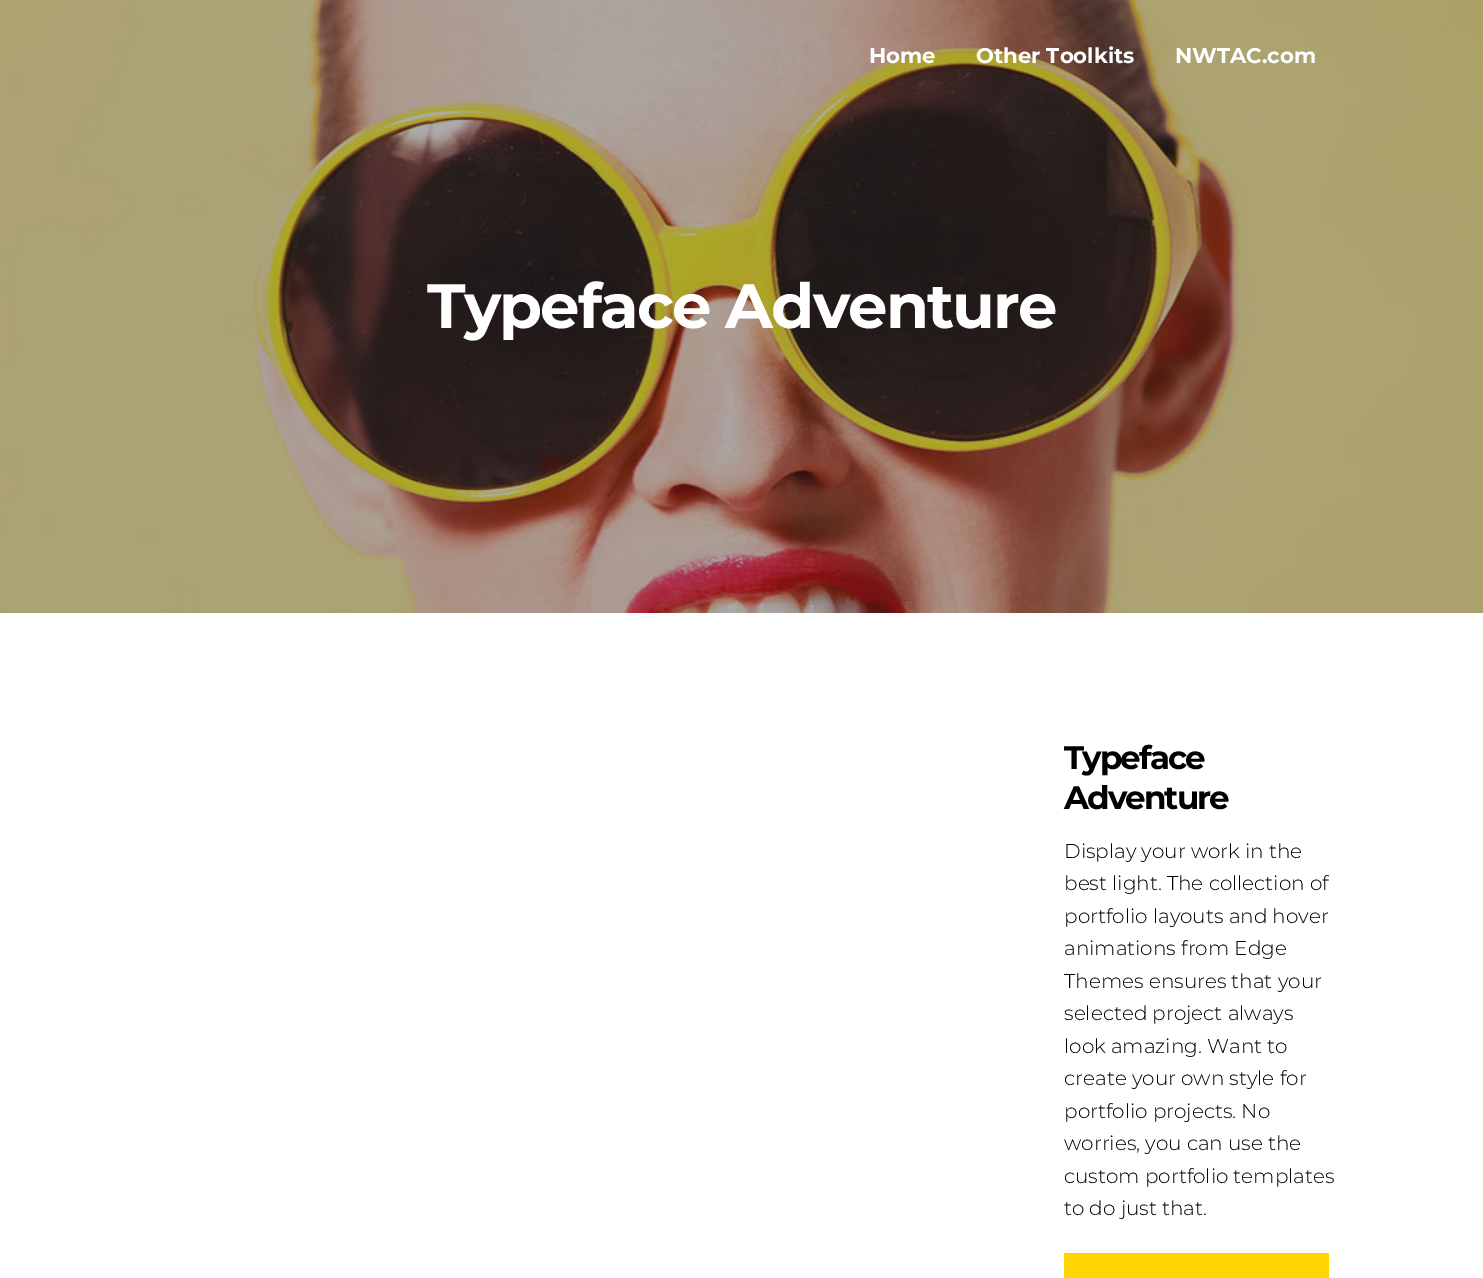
%!PS
<< /PageSize [1483 1278] >> setpagedevice
/rgb { 3 { 255 div 3 1 roll } repeat setrgbcolor } def
/font { [ exch dup neg 0 0 3 -1 roll 0 0 ] selectfont } def
/text { moveto show } def
/picture { 5 dict begin { /h /w /y /x /name } { exch def } forall
  gsave x y translate w h scale
  w h 8 [w 0 0 h 0 0] name (r) file false 3 colorimage grestore end } def
0 1278 translate 1 -1 scale
4 setmiterlimit
255 255 255 rgb
0 0 1483 1278 rectfill
(img_01.rgb) 0 0 1483 613 picture
255 212 1 rgb
1064 1253 265 25 rectfill
/Montserrat-Bold 21.25 font
255 255 255 rgb
(Home) 869 63 text
(Other Toolkits) 976 63 text
(NWTAC.com) 1175 63 text
/Montserrat-Bold 62.5 font
427 328 moveto -1.9 0 (Typeface Adventure) ashow
/Montserrat-Bold 32.5 font
0 0 0 rgb
1064 769 moveto -1.9 0 (Typeface) ashow
1064 809 moveto -1.9 0 (Adventure) ashow
/Montserrat-Light 20 font
(Display your work in the) 1064 858 text
(best light. The collection of) 1064 890 text
(portfolio layouts and hover) 1064 923 text
(animations from Edge) 1064 955 text
(Themes ensures that your) 1064 988 text
(selected project always) 1064 1020 text
(look amazing. Want to) 1064 1053 text
(create your own style for) 1064 1085 text
(portfolio projects. No) 1064 1118 text
(worries, you can use the) 1064 1150 text
(custom portfolio templates) 1064 1183 text
(to do just that.) 1064 1215 text
showpage
